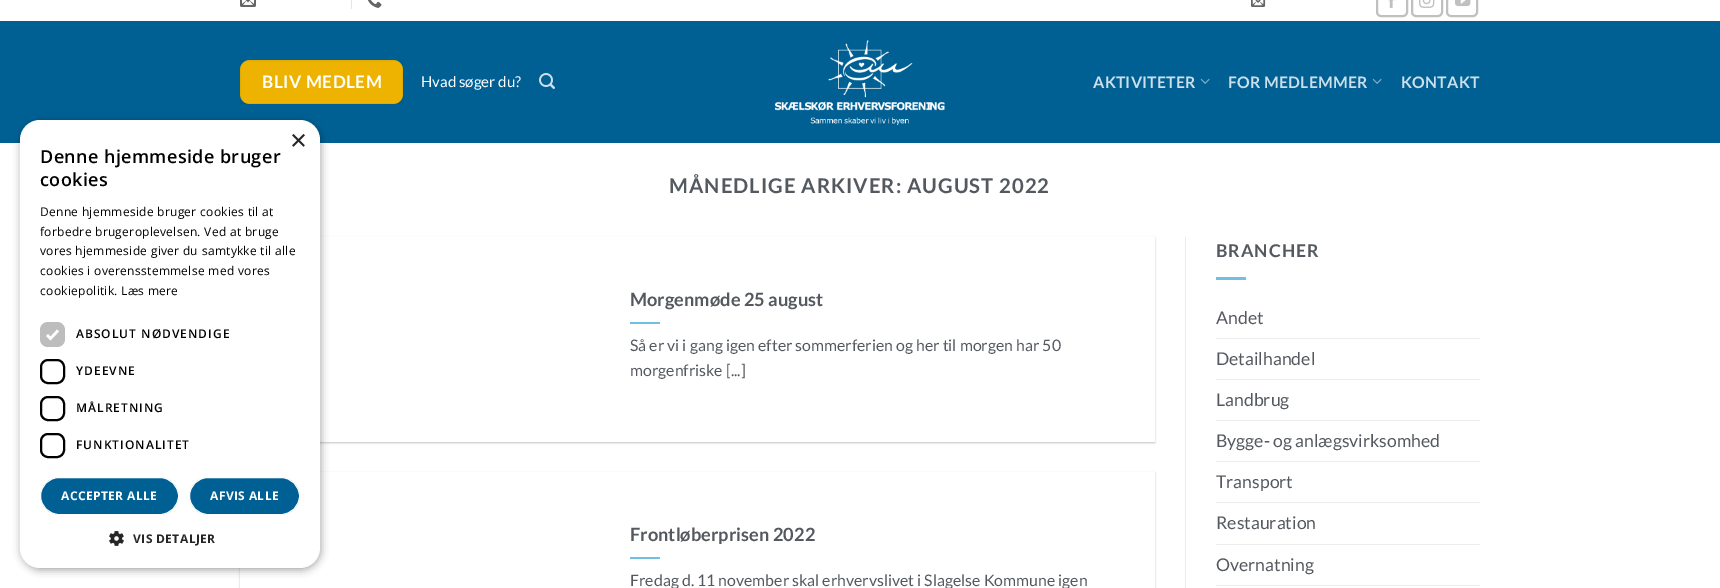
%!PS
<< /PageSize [1720 588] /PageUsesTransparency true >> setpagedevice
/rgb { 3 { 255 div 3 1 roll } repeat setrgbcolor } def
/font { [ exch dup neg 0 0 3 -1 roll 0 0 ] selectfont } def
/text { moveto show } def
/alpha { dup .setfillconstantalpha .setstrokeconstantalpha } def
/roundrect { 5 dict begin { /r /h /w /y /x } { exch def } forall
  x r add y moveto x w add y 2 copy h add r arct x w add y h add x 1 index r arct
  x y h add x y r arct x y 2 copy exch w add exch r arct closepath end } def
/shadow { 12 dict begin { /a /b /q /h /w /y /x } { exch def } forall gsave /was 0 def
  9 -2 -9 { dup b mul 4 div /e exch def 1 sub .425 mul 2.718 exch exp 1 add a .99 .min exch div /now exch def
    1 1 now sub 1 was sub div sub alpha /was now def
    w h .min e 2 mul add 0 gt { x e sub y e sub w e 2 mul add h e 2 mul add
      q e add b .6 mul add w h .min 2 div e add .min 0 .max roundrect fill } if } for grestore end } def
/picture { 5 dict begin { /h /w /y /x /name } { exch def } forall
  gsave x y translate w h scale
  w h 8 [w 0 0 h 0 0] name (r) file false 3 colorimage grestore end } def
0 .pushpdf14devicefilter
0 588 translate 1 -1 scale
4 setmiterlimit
255 255 255 rgb
0 0 1720 588 rectfill
0 96 148 rgb
0 21 1720 122 rectfill
0 0 0 rgb
21 122 300 448 20 4 0.35 shadow
gsave
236 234 moveto 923 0 rlineto 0 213 rlineto -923 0 rlineto closepath 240 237 moveto 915 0 rlineto 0 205 rlineto -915 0 rlineto closepath eoclip newpath
240 238 915 205 0 1 0.24 shadow
grestore
gsave
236 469 moveto 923 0 rlineto 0 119 rlineto -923 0 rlineto closepath 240 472 moveto 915 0 rlineto 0 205 rlineto -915 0 rlineto closepath eoclip newpath
240 473 915 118 0 1 0.24 shadow
grestore
255 255 255 rgb
20 120 300 448 20 roundrect fill
189 189 189 rgb
40 322 25 25 8 roundrect fill
255 255 255 rgb
2.6 setlinewidth
47 335 moveto 3.5 3.5 rlineto 7.5 -8 rlineto stroke
0 0 0 rgb
2 setlinewidth
41 360 23 23 7 roundrect stroke
41 397 23 23 7 roundrect stroke
41 434 23 23 7 roundrect stroke
0 96 148 rgb
40.5 477.5 138 37 18.5 roundrect gsave fill grestore
255 255 255 rgb
1 setlinewidth
stroke
0 96 148 rgb
189.5 477.5 110 37 18.5 roundrect gsave fill grestore
255 255 255 rgb
stroke
(img_01.rgb) 109 531 15 15 picture
(img_02.rgb) 240 0 16 7 picture
230 230 230 rgb
351 0 1 9 rectfill
(img_03.rgb) 367 0 15 8 picture
(img_04.rgb) 1251 0 15 7 picture
192 192 192 rgb
2 setlinewidth
1377 -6 30 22 4 roundrect stroke
(img_05.rgb) 1388 0 7 8 picture
1412 -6 30 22 4 roundrect stroke
(img_06.rgb) 1419 0 16 8 picture
1447 -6 30 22 4 roundrect stroke
(img_07.rgb) 1455 0 16 7 picture
237 179 0 rgb
240 60 163 44 10 roundrect fill
0.05 alpha
0 0 0 rgb
1 setlinewidth
240.5 60.5 162 43 rectstroke
1 alpha
(img_08.rgb) 539 73 16 16 picture
(img_09.rgb) 775 40 170 85 picture
(img_10.rgb) 1200 78 10 6 picture
(img_10.rgb) 1372 78 10 6 picture
110 193 228 rgb
630 322 30 2 rectfill
630 557 30 2 rectfill
236 236 236 rgb
1185 237 1 351 rectfill
110 193 228 rgb
1216 277 30 3 rectfill
236 236 236 rgb
1216 338 264 1 rectfill
1216 379 264 1 rectfill
1216 420 264 1 rectfill
1216 461 264 1 rectfill
1216 502 264 1 rectfill
1216 544 264 1 rectfill
1216 585 264 1 rectfill
/LiberationSans-Regular 29 font
38 38 38 rgb
(×) 290 150 text
/OpenSans-SemiBold 18 font
0 0 0 rgb
40 163 moveto 0.4 0 (Denne hjemmeside bruger) ashow
40 186 moveto 0.4 0 (cookies) ashow
/OpenSans-Regular 12 font
40 216 moveto 0.3 0 (Denne hjemmeside bruger cookies til at) ashow
40 236 moveto 0.3 0 (forbedre brugeroplevelsen. Ved at bruge) ashow
40 255 moveto 0.3 0 (vores hjemmeside giver du samtykke til alle) ashow
40 275 moveto 0.3 0 (cookies i overensstemmelse med vores) ashow
40 295 moveto 0.3 0 (cookiepolitik. Læs mere) ashow
/OpenSans-SemiBold 12 font
76 338 moveto 1 0 (ABSOLUT NØDVENDIGE) ashow
76 375 moveto 1 0 (YDEEVNE) ashow
76 412 moveto 1 0 (MÅLRETNING) ashow
76 449 moveto 1 0 (FUNKTIONALITET) ashow
/OpenSans-Bold 12 font
255 255 255 rgb
61 500 moveto 0.4 0 (ACCEPTER ALLE) ashow
210 500 moveto 0.4 0 (AFVIS ALLE) ashow
38 38 38 rgb
133 543 moveto 0.4 0 (VIS DETALJER) ashow
/Lato-Bold 17.25 font
255 255 255 rgb
262 88 moveto 0.5 0 (BLIV MEDLEM) ashow
/Lato-Regular 15 font
(Hvad søger du?) 421 87 text
/Lato-Bold 15.85 font
204 223 234 rgb
1093 88 moveto 0.25 0 (AKTIVITETER) ashow
1228 88 moveto 0.25 0 (FOR MEDLEMMER) ashow
1401 88 moveto 0.25 0 (KONTAKT) ashow
/Lato-Bold 20.25 font
84 89 95 rgb
669 193 moveto 1 0 (MÅNEDLIGE ARKIVER: AUGUST 2022) ashow
/Lato-Bold 18.25 font
(Morgenmøde 25 august) 630 306 text
/Lato-Regular 15.85 font
(Så er vi i gang igen efter sommerferien og her til morgen har 50) 630 351 text
(morgenfriske [...]) 630 376 text
/Lato-Bold 18.25 font
(Frontløberprisen 2022) 630 541 text
/Lato-Regular 15.85 font
(Fredag d. 11 november skal erhvervslivet i Slagelse Kommune igen) 630 586 text
/Lato-Bold 17.6 font
1216 257 moveto 1 0 (BRANCHER) ashow
/Lato-Regular 17.6 font
(Andet) 1216 324 text
(Detailhandel) 1216 365 text
(Landbrug) 1216 406 text
(Bygge- og anlægsvirksomhed) 1216 447 text
(Transport) 1216 488 text
(Restauration) 1216 529 text
(Overnatning) 1216 571 text
.poppdf14devicefilter showpage
